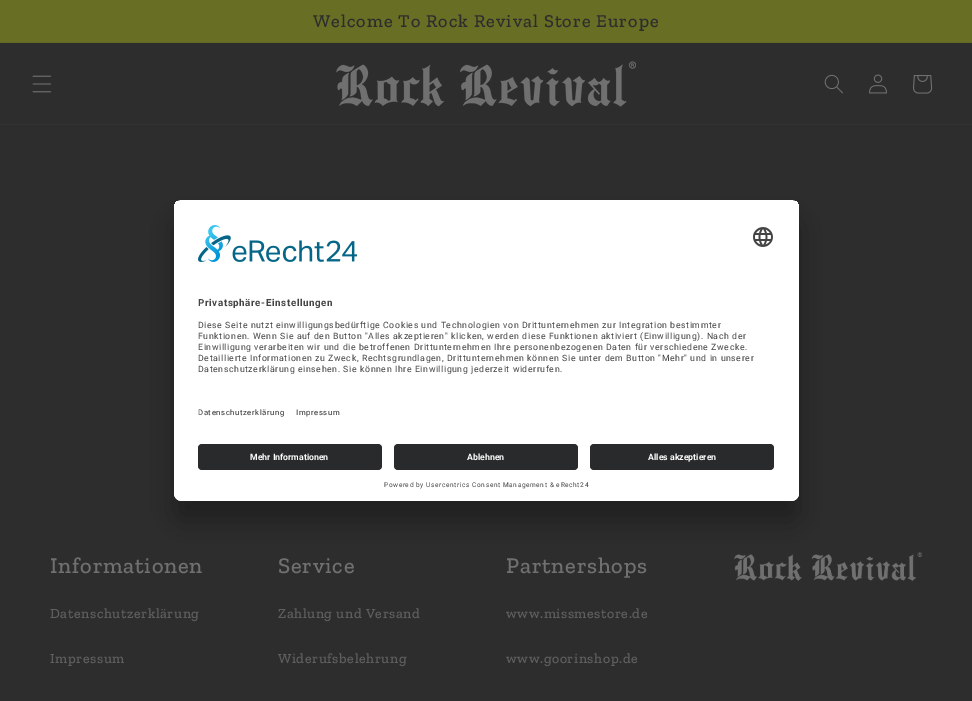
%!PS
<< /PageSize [972 701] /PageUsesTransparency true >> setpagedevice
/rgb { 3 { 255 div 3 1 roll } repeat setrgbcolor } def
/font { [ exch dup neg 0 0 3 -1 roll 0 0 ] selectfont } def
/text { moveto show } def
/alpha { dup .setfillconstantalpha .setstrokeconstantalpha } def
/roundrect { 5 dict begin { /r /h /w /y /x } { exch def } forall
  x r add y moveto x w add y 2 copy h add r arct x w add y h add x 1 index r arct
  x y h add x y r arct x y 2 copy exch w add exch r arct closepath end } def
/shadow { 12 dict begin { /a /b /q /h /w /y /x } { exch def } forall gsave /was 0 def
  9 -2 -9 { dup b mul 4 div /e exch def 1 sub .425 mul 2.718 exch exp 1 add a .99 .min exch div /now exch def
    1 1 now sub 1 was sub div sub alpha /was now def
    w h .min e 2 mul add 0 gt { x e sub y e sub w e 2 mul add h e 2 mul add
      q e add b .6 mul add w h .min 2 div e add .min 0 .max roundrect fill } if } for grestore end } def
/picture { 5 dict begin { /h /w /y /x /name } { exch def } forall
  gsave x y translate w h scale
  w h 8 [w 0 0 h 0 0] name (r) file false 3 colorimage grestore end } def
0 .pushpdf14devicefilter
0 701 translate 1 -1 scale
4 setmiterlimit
45 45 46 rgb
0 0 972 701 rectfill
104 111 36 rgb
0 0 972 42 rectfill
99 106 37 rgb
0 42 972 1 rectfill
50 50 51 rgb
0 124 972 1 rectfill
(img_01.rgb) 32 75 20 18 picture
(img_02.rgb) 336 61 300 46 picture
(img_03.rgb) 824 74 19 20 picture
(img_04.rgb) 869 74 18 20 picture
(img_05.rgb) 913 75 20 19 picture
(img_08.rgb) 734 552 188 29 picture
0 0 0 rgb
174 220 625 301 8 14 0.3 shadow
255 255 255 rgb
174 200 625 301 8 roundrect fill
gsave
174 200 625 301 8 roundrect clip newpath
182 200 moveto 609 0 rlineto 4.5 0 8 3.5 8 8 rcurveto 0 228 rlineto -625 0 rlineto 0 -228 rlineto 0 -4.5 3.5 -8 8 -8 rcurveto closepath clip newpath
174 201 625 235 rectfill
grestore
(img_06.rgb) 198 225 159 37 picture
(img_07.rgb) 753 227 20 20 picture
174 436 moveto 625 0 rlineto 0 57 rlineto 0 4.5 -3.5 8 -8 8 rcurveto -609 0 rlineto -4.5 0 -8 -3.5 -8 -8 rcurveto closepath fill
41 42 43 rgb
198 444 184 26 4 roundrect fill
394 444 184 26 4 roundrect fill
590 444 184 26 4 roundrect fill
/ZillaSlab-Medium 18.25 font
45 45 46 rgb
313 27 moveto 1 0 (Welcome To Rock Revival Store Europe) ashow
/Roboto-Bold 9.8 font
68 68 68 rgb
198 306 moveto 0.6 0 (Privatsphäre-Einstellungen) ashow
/Roboto-Regular 8.75 font
198 328 moveto 0.6 0 (Diese Seite nutzt einwilligungsbedürftige Cookies und Technologien von Drittunternehmen zur Integration bestimmter) ashow
198 339 moveto 0.6 0 (Funktionen. Wenn Sie auf den Button "Alles akzeptieren" klicken, werden diese Funktionen aktiviert \(Einwilligung\). Nach der) ashow
198 350 moveto 0.6 0 (Einwilligung verarbeiten wir und die betroffenen Drittunternehmen Ihre personenbezogenen Daten für verschiedene Zwecke.) ashow
198 361 moveto 0.6 0 (Detaillierte Informationen zu Zweck, Rechtsgrundlagen, Drittunternehmen können Sie unter dem Button "Mehr" und in unserer) ashow
198 372 moveto 0.6 0 (Datenschutzerklärung einsehen. Sie können Ihre Einwilligung jederzeit widerrufen.) ashow
/Roboto-Regular 7.7 font
45 45 46 rgb
198 415 moveto 0.6 0 (Datenschutzerklärung) ashow
296 415 moveto 0.6 0 (Impressum) ashow
/Roboto-Bold 8.75 font
255 255 255 rgb
(Mehr Informationen) 250 460 text
(Ablehnen) 467 460 text
(Alles akzeptieren) 648 460 text
/Roboto-Regular 6.55 font
68 68 68 rgb
384 487 moveto 0.6 0 (Powered by Usercentrics Consent Management & eRecht24) ashow
/ZillaSlab-Medium 22.5 font
112 112 112 rgb
50 573 moveto 0.8 0 (Informationen) ashow
/ZillaSlab-Medium 14 font
95 95 96 rgb
50 618 moveto 0.6 0 (Datenschutzerklärung) ashow
50 663 moveto 0.6 0 (Impressum) ashow
/ZillaSlab-Medium 22.5 font
112 112 112 rgb
278 573 moveto 0.8 0 (Service) ashow
/ZillaSlab-Medium 14 font
95 95 96 rgb
278 618 moveto 0.6 0 (Zahlung und Versand) ashow
278 663 moveto 0.6 0 (Widerufsbelehrung) ashow
/ZillaSlab-Medium 22.5 font
112 112 112 rgb
506 573 moveto 0.8 0 (Partnershops) ashow
/ZillaSlab-Medium 14 font
95 95 96 rgb
506 618 moveto 0.6 0 (www.missmestore.de) ashow
506 663 moveto 0.6 0 (www.goorinshop.de) ashow
.poppdf14devicefilter showpage
